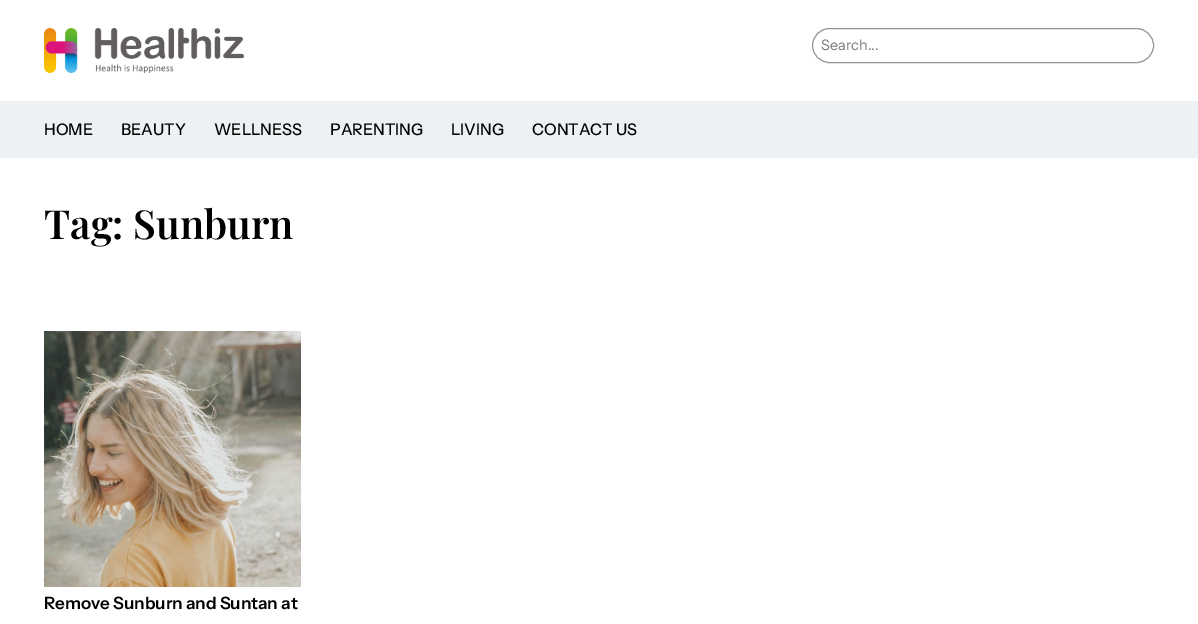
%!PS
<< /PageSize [1198 624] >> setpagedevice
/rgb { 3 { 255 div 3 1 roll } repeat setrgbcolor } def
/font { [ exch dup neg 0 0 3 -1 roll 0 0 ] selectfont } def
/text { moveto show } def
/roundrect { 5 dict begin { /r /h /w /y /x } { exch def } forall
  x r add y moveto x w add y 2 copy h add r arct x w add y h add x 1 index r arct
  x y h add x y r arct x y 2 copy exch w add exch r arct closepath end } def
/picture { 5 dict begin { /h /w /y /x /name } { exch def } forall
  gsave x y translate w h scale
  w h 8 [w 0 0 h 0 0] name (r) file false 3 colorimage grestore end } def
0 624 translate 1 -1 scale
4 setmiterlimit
255 255 255 rgb
0 0 1198 624 rectfill
(img_01.rgb) 44 28 200 45 picture
148 148 148 rgb
812.5 28.5 341 34 17 roundrect stroke
237 241 244 rgb
0 101 1198 57 rectfill
(img_02.rgb) 44 331 257 256 picture
/InstrumentSans-Regular 14.5 font
117 117 117 rgb
(Search...) 821 50 text
/InstrumentSans-Medium 16 font
0 0 0 rgb
(HOME) 44 135 text
(BEAUTY) 121 135 text
(WELLNESS) 214 135 text
(PARENTING) 330 135 text
(LIVING) 451 135 text
(CONTACT US) 532 135 text
/PlayfairDisplay-SemiBold 40 font
(Tag: Sunburn) 44 239 text
/InstrumentSans-SemiBold 17 font
(Remove Sunburn and Suntan at) 44 609 text
showpage
